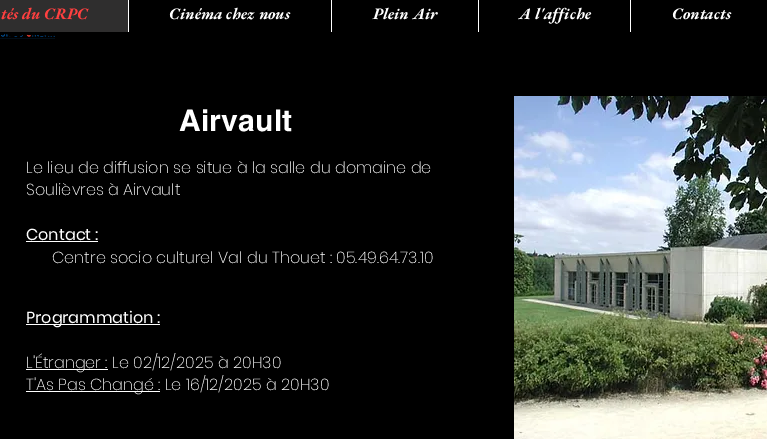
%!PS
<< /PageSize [767 439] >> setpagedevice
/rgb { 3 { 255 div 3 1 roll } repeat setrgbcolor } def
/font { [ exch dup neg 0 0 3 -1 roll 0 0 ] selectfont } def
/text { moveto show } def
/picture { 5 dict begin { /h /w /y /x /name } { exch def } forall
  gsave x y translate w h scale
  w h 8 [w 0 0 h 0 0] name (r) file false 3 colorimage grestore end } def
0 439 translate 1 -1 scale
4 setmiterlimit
0 0 0 rgb
0 0 767 439 rectfill
47 46 46 rgb
0 0 128 32 rectfill
255 255 255 rgb
128 0 1 32 rectfill
331 0 1 32 rectfill
478 0 1 32 rectfill
630 0 1 32 rectfill
(img_02.rgb) 0 34 55 5 picture
(img_01.rgb) 0 32 55 5 picture
(img_03.rgb) 514 96 253 343 picture
26 241 72 1 rectfill
26 324 134 1 rectfill
26 369 82 1 rectfill
26 391 134 1 rectfill
/EBGaramond-BoldItalic 16 font
255 64 64 rgb
(tés du CRPC) 1 19 text
255 255 255 rgb
(Cinéma chez nous) 169 19 text
(Plein Air) 373 19 text
(A l'affiche) 519 19 text
(Contacts) 672 19 text
/helvetica-Bold 30 font
179 131 moveto 0.25 0 (Airvault) ashow
/Poppins-ExtraLight 16 font
(Le lieu de diffusion se situe à la salle du domaine de) 26 173 text
(Soulièvres à Airvault) 26 195 text
/Poppins-Regular 16 font
(Contact :) 26 240 text
/Poppins-ExtraLight 16 font
(Centre socio culturel Val du Thouet : 05.49.64.73.10) 52 263 text
/Poppins-Regular 16 font
(Programmation :) 26 323 text
/Poppins-ExtraLight 16 font
(L'Étranger : Le 02/12/2025 à 20H30) 26 368 text
(T'As Pas Changé : Le 16/12/2025 à 20H30) 26 390 text
showpage
